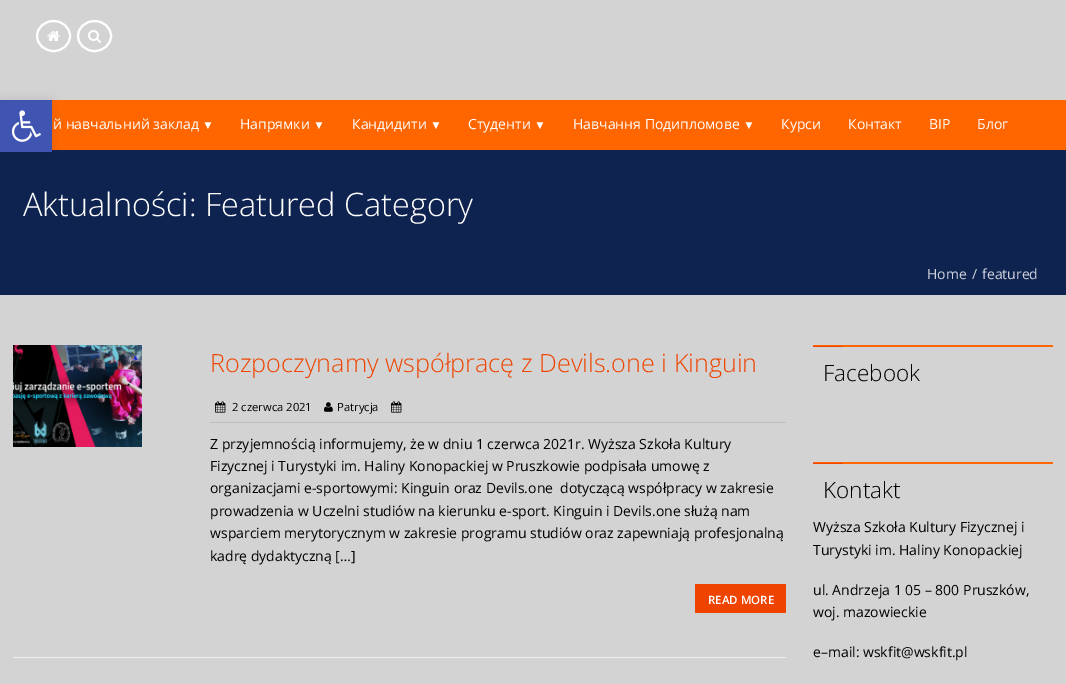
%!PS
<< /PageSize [1066 684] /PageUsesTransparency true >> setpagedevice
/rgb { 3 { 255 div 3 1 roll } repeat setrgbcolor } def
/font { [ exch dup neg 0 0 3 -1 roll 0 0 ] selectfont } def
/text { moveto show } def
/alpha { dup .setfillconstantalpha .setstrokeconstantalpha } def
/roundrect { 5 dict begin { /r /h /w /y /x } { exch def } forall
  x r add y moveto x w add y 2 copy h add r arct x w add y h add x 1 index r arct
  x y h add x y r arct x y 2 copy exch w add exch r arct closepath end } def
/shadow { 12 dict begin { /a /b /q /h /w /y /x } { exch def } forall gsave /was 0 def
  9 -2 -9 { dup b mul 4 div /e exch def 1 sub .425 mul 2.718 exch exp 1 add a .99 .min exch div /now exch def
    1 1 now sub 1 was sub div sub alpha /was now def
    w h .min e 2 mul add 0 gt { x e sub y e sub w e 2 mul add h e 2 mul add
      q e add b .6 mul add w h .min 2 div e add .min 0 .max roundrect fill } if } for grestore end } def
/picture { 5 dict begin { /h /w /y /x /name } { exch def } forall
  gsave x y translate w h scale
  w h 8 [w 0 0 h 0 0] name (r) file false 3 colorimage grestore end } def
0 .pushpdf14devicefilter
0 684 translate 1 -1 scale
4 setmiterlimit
211 211 211 rgb
0 0 1066 684 rectfill
255 102 0 rgb
52 100 1014 50 rectfill
15 35 80 rgb
0 150 1066 145 rectfill
0 0 0 rgb
0 100 52 52 0 5 0.1 shadow
64 84 178 rgb
0 100 52 52 rectfill
(img_01.rgb) 11 110 30 32 picture
255 255 255 rgb
2 setlinewidth
53.5 21 moveto 9 0 16.5 6.5 16.5 15 rcurveto 0 8.5 -7.5 15 -16.5 15 rcurveto -9 0 -16.5 -6.5 -16.5 -15 rcurveto 0 -8.5 7.5 -15 16.5 -15 rcurveto closepath stroke
(img_02.rgb) 47 31 13 10 picture
94.5 21 moveto 9 0 16.5 6.5 16.5 15 rcurveto 0 8.5 -7.5 15 -16.5 15 rcurveto -9 0 -16.5 -6.5 -16.5 -15 rcurveto 0 -8.5 7.5 -15 16.5 -15 rcurveto closepath stroke
(img_03.rgb) 88 30 13 13 picture
238 238 238 rgb
13 657 773 1 rectfill
(img_04.rgb) 13 345 129 102 picture
190 190 190 rgb
210 422 576 1 rectfill
(img_05.rgb) 215 401 11 12 picture
(img_06.rgb) 324 402 9 10 picture
(img_05.rgb) 391 401 11 12 picture
238 68 0 rgb
695 584 91 29 rectfill
255 102 0 rgb
813 345 240 2 rectfill
238 68 0 rgb
813 346 30 1 rectfill
255 102 0 rgb
813 462 240 2 rectfill
238 68 0 rgb
813 463 30 1 rectfill
/OpenSans-Regular 14 font
255 255 255 rgb
(й навчальний заклад) 53 129 text
/LiberationSans-Italic 12 font
(▼) 202 129 text
/OpenSans-Regular 14 font
(Напрямки) 240 129 text
/LiberationSans-Italic 12 font
(▼) 313 129 text
/OpenSans-Regular 14 font
(Кандидити) 352 129 text
/LiberationSans-Italic 12 font
(▼) 430 129 text
/OpenSans-Regular 14 font
(Студенти) 468 129 text
/LiberationSans-Italic 12 font
(▼) 534 129 text
/OpenSans-Regular 14 font
(Навчання Подипломове) 573 129 text
/LiberationSans-Italic 12 font
(▼) 743 129 text
/OpenSans-Regular 14 font
(Курси) 781 129 text
(Контакт) 848 129 text
(BIP) 929 129 text
(Блог) 977 129 text
/OpenSans-Light 32.4 font
(Aktualności: Featured Category) 23 216 text
/OpenSans-Regular 14 font
207 211 220 rgb
(Home) 927 279 text
(/) 972 279 text
(featured) 982 279 text
/OpenSans-Light 25.2 font
238 68 0 rgb
(Rozpoczynamy współpracę z Devils.one i Kinguin) 210 372 text
/OpenSans-Regular 11.25 font
0 0 0 rgb
(2 czerwca 2021) 232 411 text
(Patrycja) 337 411 text
/OpenSans-Regular 14 font
(Z przyjemnością informujemy, że w dniu 1 czerwca 2021r. Wyższa Szkoła Kultury) 210 449 text
(Fizycznej i Turystyki im. Haliny Konopackiej w Pruszkowie podpisała umowę z) 210 471 text
(organizacjami e-sportowymi: Kinguin oraz Devils.one  dotyczącą współpracy w zakresie) 210 493 text
(prowadzenia w Uczelni studiów na kierunku e-sport. Kinguin i Devils.one służą nam) 210 516 text
(wsparciem merytorycznym w zakresie programu studiów oraz zapewniają profesjonalną) 210 538 text
(kadrę dydaktyczną […]) 210 561 text
/OpenSans-SemiBold 11.5 font
255 255 255 rgb
(READ MORE) 708 604 text
/OpenSans-Light 22.5 font
0 0 0 rgb
(Facebook) 823 381 text
(Kontakt) 823 498 text
/OpenSans-Regular 14 font
(Wyższa Szkoła Kultury Fizycznej i) 813 532 text
(Turystyki im. Haliny Konopackiej) 813 555 text
(ul. Andrzeja 1 05 – 800 Pruszków,) 813 595 text
(woj. mazowieckie) 813 617 text
(e–mail: wskfit@wskfit.pl) 813 657 text
.poppdf14devicefilter showpage
